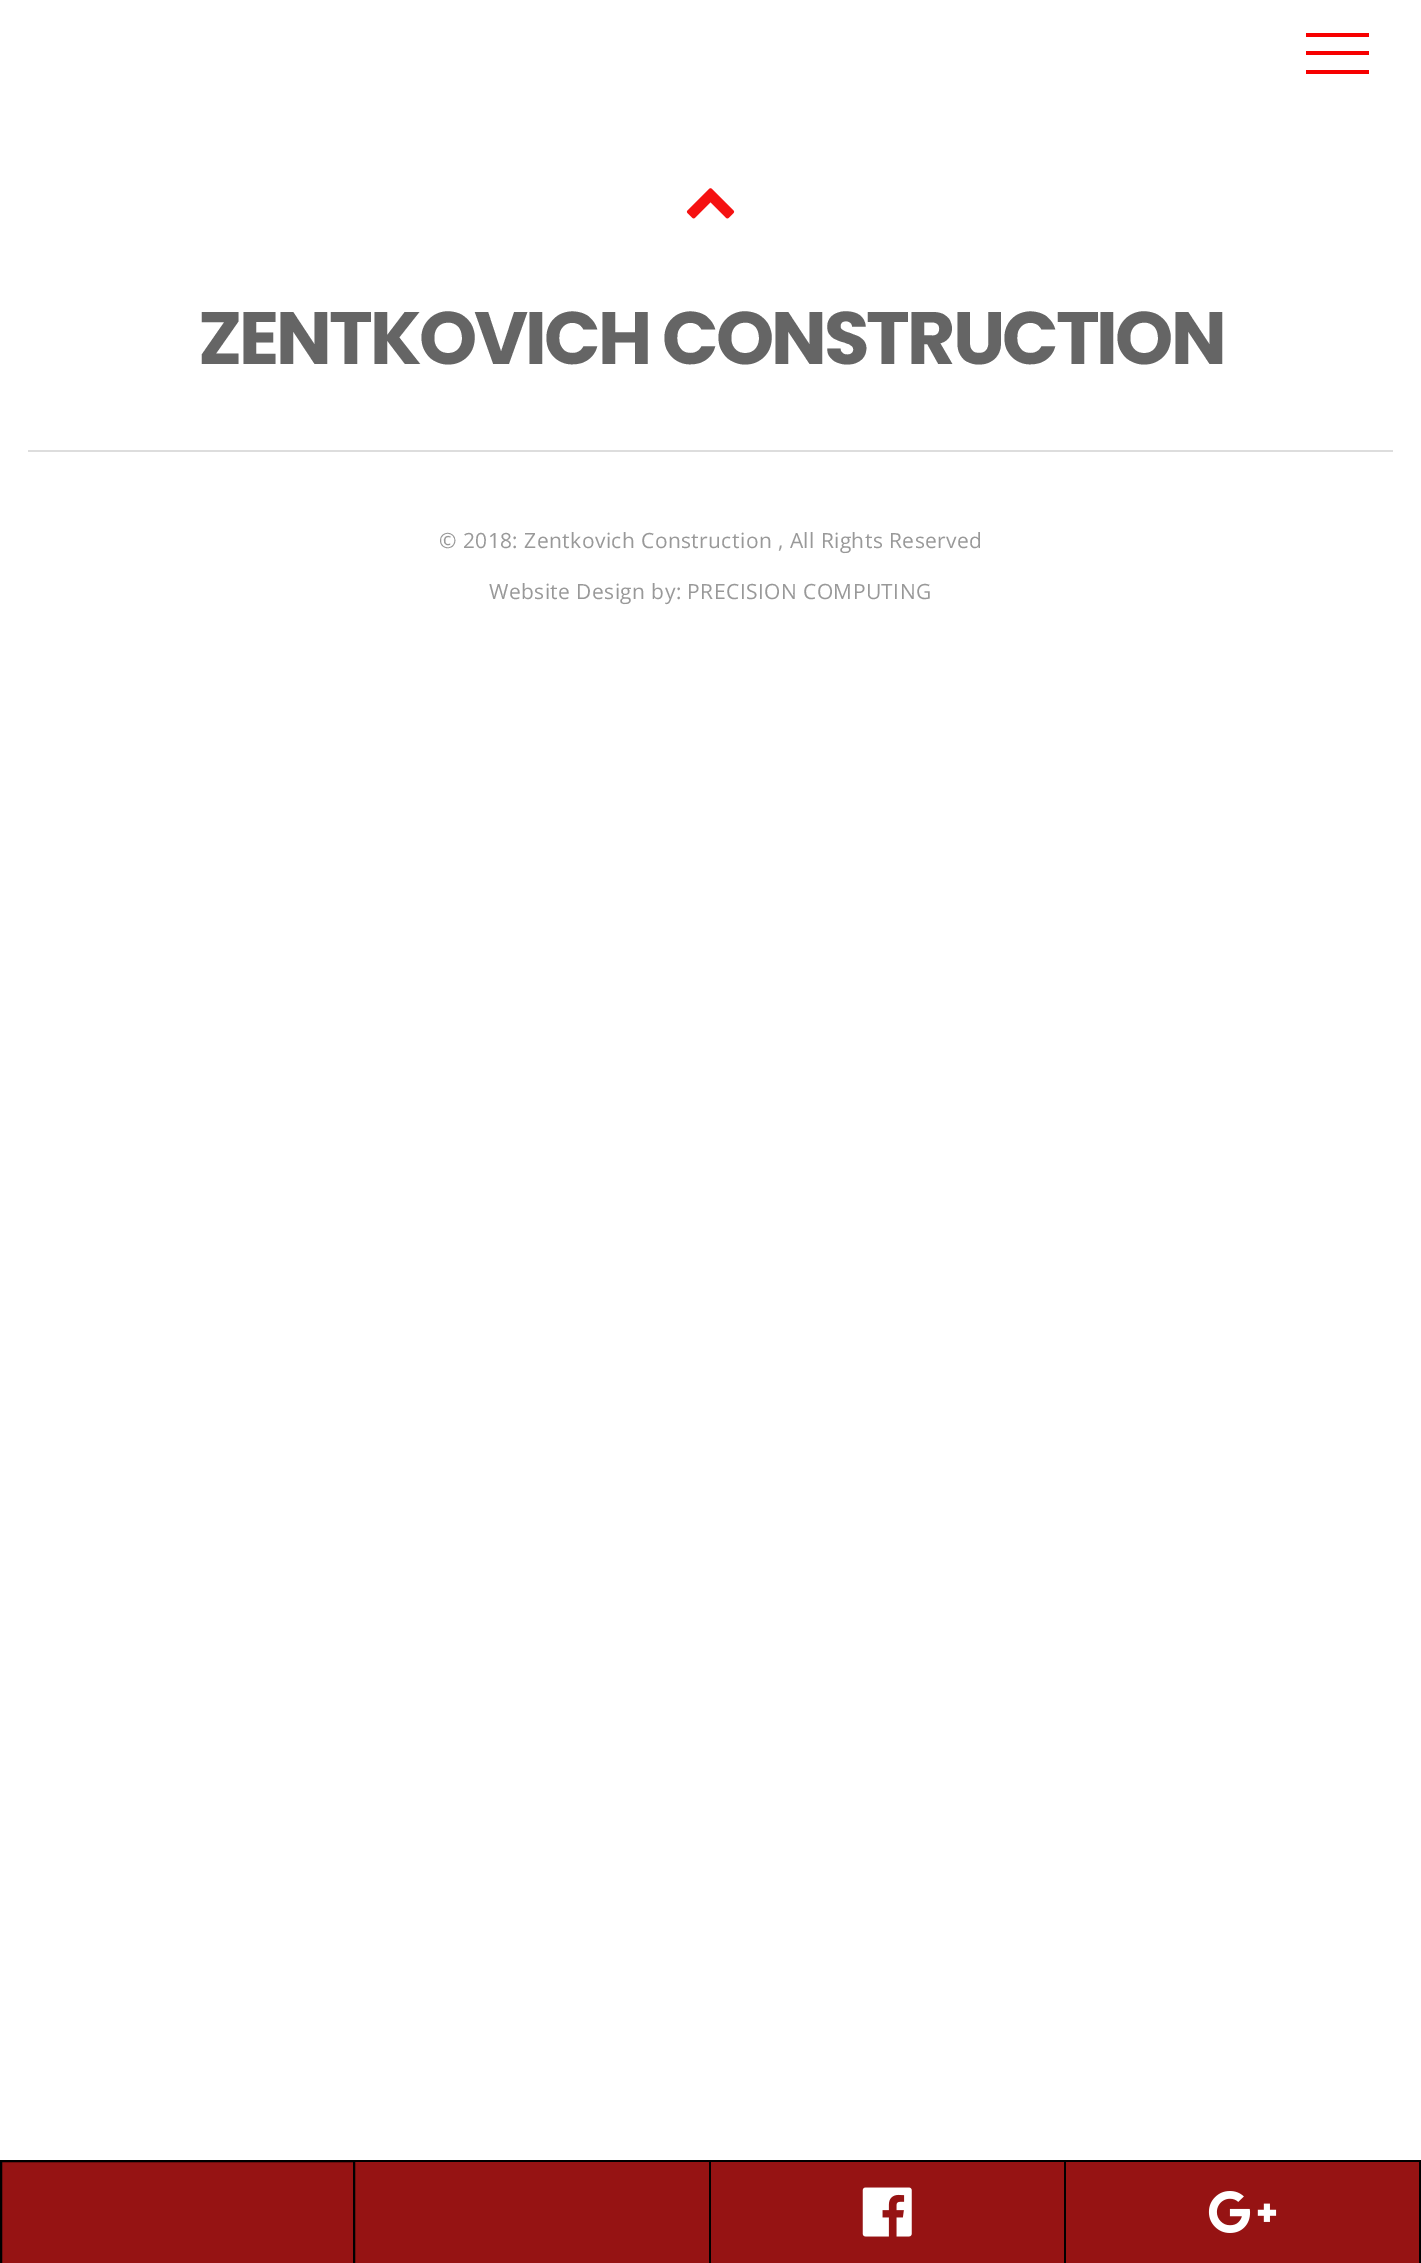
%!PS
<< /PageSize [1421 2263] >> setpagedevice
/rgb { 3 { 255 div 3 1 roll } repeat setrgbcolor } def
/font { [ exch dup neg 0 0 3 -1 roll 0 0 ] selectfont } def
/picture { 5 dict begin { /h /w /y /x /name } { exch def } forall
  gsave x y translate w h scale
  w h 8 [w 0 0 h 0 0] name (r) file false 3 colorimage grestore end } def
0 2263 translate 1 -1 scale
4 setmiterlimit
255 255 255 rgb
0 0 1421 2263 rectfill
247 0 0 rgb
1306 33 63 4 rectfill
1306 70 63 4 rectfill
1306 51 63 4 rectfill
(img_01.rgb) 686 188 49 31 picture
221 221 221 rgb
28 450 1365 2 rectfill
150 19 19 rgb
2 2162 1417 101 rectfill
0 0 0 rgb
2 setlinewidth
1 2161 353 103 rectstroke
355 2160 1066 2 rectfill
709 2160 2 103 rectfill
1064 2160 2 103 rectfill
(img_02.rgb) 862 2187 50 50 picture
1419 2160 2 103 rectfill
(img_03.rgb) 1208 2191 69 42 picture
/Poppins-Bold 74.25 font
101 101 101 rgb
198 364 moveto -3 0 (ZENTKOVICH CONSTRUCTION) ashow
/OpenSans-Regular 21 font
153 153 153 rgb
439 548 moveto 0.42 0 (© 2018: Zentkovich Construction , All Rights Reserved) ashow
489 599 moveto 0.42 0 (Website Design by: PRECISION COMPUTING) ashow
showpage
